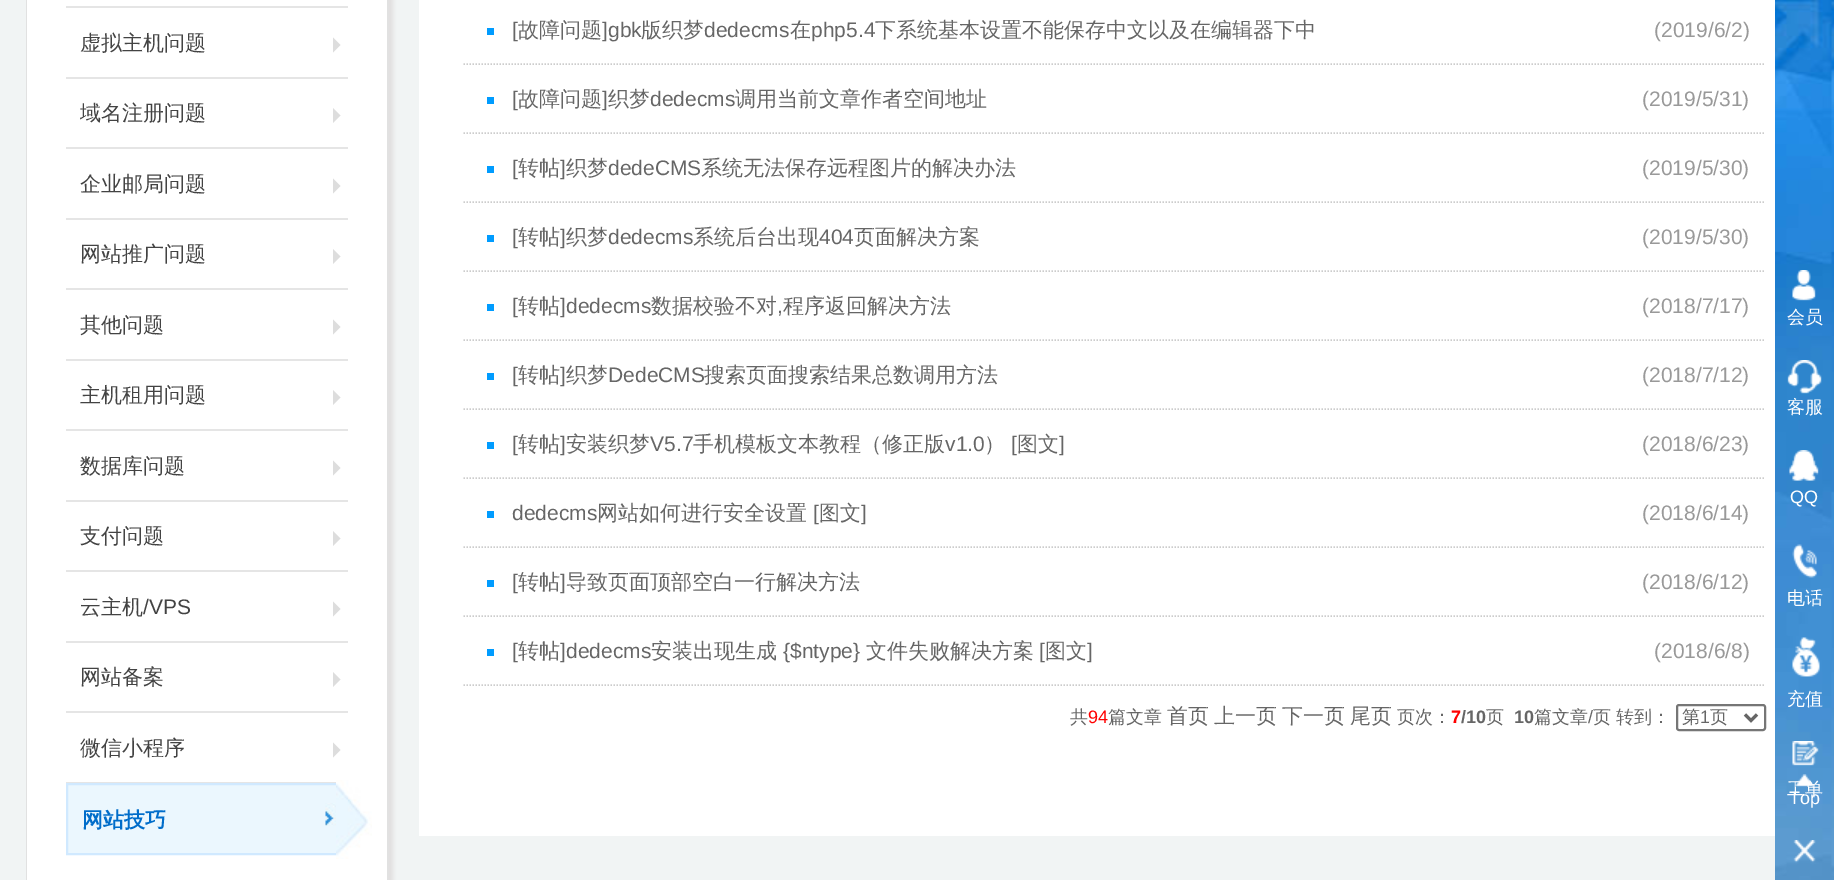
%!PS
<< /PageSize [1834 880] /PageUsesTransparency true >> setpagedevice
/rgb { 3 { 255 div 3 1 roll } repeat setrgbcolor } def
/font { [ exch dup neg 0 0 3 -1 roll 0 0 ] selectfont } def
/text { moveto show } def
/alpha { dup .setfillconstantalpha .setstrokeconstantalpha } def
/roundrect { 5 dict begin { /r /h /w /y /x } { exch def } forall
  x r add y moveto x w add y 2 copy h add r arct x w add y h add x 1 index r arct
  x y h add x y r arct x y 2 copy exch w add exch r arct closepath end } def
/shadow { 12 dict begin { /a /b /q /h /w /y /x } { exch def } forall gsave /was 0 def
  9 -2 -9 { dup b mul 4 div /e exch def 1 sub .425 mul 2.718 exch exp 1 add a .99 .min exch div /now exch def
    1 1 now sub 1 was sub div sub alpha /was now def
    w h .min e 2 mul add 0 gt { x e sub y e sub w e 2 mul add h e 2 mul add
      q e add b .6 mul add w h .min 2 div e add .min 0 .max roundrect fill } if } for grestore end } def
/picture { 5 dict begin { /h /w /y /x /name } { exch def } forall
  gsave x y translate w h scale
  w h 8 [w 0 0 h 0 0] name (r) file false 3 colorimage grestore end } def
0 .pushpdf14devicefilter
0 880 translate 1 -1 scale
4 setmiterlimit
241 244 244 rgb
0 0 1834 880 rectfill
208 205 205 rgb
30 -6 363 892 0 2 0.51 shadow
225 225 225 rgb
2 setlinewidth
27 -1 361 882 rectstroke
255 255 255 rgb
27 0 360 880 rectfill
229 229 229 rgb
66 6 282 2 rectfill
66 77 282 2 rectfill
221 221 221 rgb
333 52.5 moveto 0 -15 rlineto 7.5 7.5 rlineto closepath fill
229 229 229 rgb
66 147 282 2 rectfill
221 221 221 rgb
333 123 moveto 0 -15 rlineto 7.5 7.5 rlineto closepath fill
229 229 229 rgb
66 218 282 2 rectfill
221 221 221 rgb
333 193.5 moveto 0 -15 rlineto 7.5 7.5 rlineto closepath fill
229 229 229 rgb
66 288 282 2 rectfill
221 221 221 rgb
333 264 moveto 0 -15 rlineto 7.5 7.5 rlineto closepath fill
229 229 229 rgb
66 359 282 2 rectfill
221 221 221 rgb
333 334.5 moveto 0 -15 rlineto 7.5 7.5 rlineto closepath fill
229 229 229 rgb
66 429 282 2 rectfill
221 221 221 rgb
333 405 moveto 0 -15 rlineto 7.5 7.5 rlineto closepath fill
229 229 229 rgb
66 500 282 2 rectfill
221 221 221 rgb
333 475.5 moveto 0 -15 rlineto 7.5 7.5 rlineto closepath fill
229 229 229 rgb
66 570 282 2 rectfill
221 221 221 rgb
333 546 moveto 0 -15 rlineto 7.5 7.5 rlineto closepath fill
229 229 229 rgb
66 641 282 2 rectfill
221 221 221 rgb
333 616.5 moveto 0 -15 rlineto 7.5 7.5 rlineto closepath fill
229 229 229 rgb
66 711 282 2 rectfill
221 221 221 rgb
333 687 moveto 0 -15 rlineto 7.5 7.5 rlineto closepath fill
229 229 229 rgb
66 782 270 1 rectfill
221 221 221 rgb
333 757.5 moveto 0 -15 rlineto 7.5 7.5 rlineto closepath fill
235 247 254 rgb
68 785 268 68 rectfill
(img_01.rgb) 325 803 11 23 picture
208 233 255 rgb
67 784 280 70 rectstroke
(img_02.rgb) 336 780 36 79 picture
255 255 255 rgb
419 0 1356 836 rectfill
204 204 204 rgb
1.5 setlinewidth
[1.5 1.5] 0 setdash
463.5 64 moveto 1302 0 rlineto stroke
0 156 255 rgb
487 28 7 7 rectfill
204 204 204 rgb
463.5 133 moveto 1302 0 rlineto stroke
0 156 255 rgb
487 97 7 7 rectfill
204 204 204 rgb
463.5 202 moveto 1302 0 rlineto stroke
0 156 255 rgb
487 166 7 7 rectfill
204 204 204 rgb
463.5 271 moveto 1302 0 rlineto stroke
0 156 255 rgb
487 235 7 7 rectfill
204 204 204 rgb
463.5 340 moveto 1302 0 rlineto stroke
0 156 255 rgb
487 304 7 7 rectfill
204 204 204 rgb
463.5 409 moveto 1302 0 rlineto stroke
0 156 255 rgb
487 373 7 7 rectfill
204 204 204 rgb
463.5 478 moveto 1302 0 rlineto stroke
0 156 255 rgb
487 442 7 7 rectfill
204 204 204 rgb
463.5 547 moveto 1302 0 rlineto stroke
0 156 255 rgb
487 511 7 7 rectfill
204 204 204 rgb
463.5 616 moveto 1302 0 rlineto stroke
0 156 255 rgb
487 580 7 7 rectfill
204 204 204 rgb
463.5 685 moveto 1302 0 rlineto stroke
0 156 255 rgb
487 649 7 7 rectfill
118 118 118 rgb
2 setlinewidth
[] 0 setdash
1677 705 88 25 2 roundrect stroke
102 102 102 rgb
3 setlinewidth
1745 714.5 moveto 6 6 rlineto 6 -6 rlineto stroke
(img_03.rgb) 1775 0 59 880 picture
(img_04.rgb) 1792 270 24 31 picture
(img_05.rgb) 1787 360 35 34 picture
(img_06.rgb) 1789 450 30 31 picture
(img_07.rgb) 1792 544 25 34 picture
(img_08.rgb) 1792 637 28 40 picture
(img_09.rgb) 1792 741 27 25 picture
(img_11.rgb) 1793 840 23 23 picture
/WenQuanYiZenHei-Medium 21 font
67 67 67 rgb
(虚拟主机问题) 80 50 text
(域名注册问题) 80 120 text
(企业邮局问题) 80 191 text
(网站推广问题) 80 261 text
(其他问题) 80 332 text
(主机租用问题) 80 402 text
(数据库问题) 80 473 text
(支付问题) 80 543 text
(云主机) 80 614 text
/LiberationSans-Regular 21 font
(/VPS) 143 614 text
/WenQuanYiZenHei-Medium 21 font
(网站备案) 80 684 text
(微信小程序) 80 755 text
/WenQuanYiZenHei-Bold 21 font
0 109 202 rgb
(网站技巧) 82 827 text
/LiberationSans-Regular 21 font
102 102 102 rgb
([) 512 37 text
/WenQuanYiZenHei-Medium 21 font
(故障问题) 518 37 text
/LiberationSans-Regular 21 font
(]gbk) 602 37 text
/WenQuanYiZenHei-Medium 21 font
(版织梦) 641 37 text
/LiberationSans-Regular 21 font
(dedecms) 704 37 text
/WenQuanYiZenHei-Medium 21 font
(在) 790 37 text
/LiberationSans-Regular 21 font
(php5.4) 811 37 text
/WenQuanYiZenHei-Medium 21 font
(下系统基本设置不能保存中文以及在编辑器下中) 875 37 text
/LiberationSans-Regular 21 font
153 153 153 rgb
(\(2019/6/2\)) 1654 37 text
102 102 102 rgb
([) 512 106 text
/WenQuanYiZenHei-Medium 21 font
(故障问题) 518 106 text
/LiberationSans-Regular 21 font
(]) 602 106 text
/WenQuanYiZenHei-Medium 21 font
(织梦) 608 106 text
/LiberationSans-Regular 21 font
(dedecms) 650 106 text
/WenQuanYiZenHei-Medium 21 font
(调用当前文章作者空间地址) 735 106 text
/LiberationSans-Regular 21 font
153 153 153 rgb
(\(2019/5/31\)) 1642 106 text
102 102 102 rgb
([) 512 175 text
/WenQuanYiZenHei-Medium 21 font
(转帖) 518 175 text
/LiberationSans-Regular 21 font
(]) 560 175 text
/WenQuanYiZenHei-Medium 21 font
(织梦) 566 175 text
/LiberationSans-Regular 21 font
(dedeCMS) 608 175 text
/WenQuanYiZenHei-Medium 21 font
(系统无法保存远程图片的解决办法) 701 175 text
/LiberationSans-Regular 21 font
153 153 153 rgb
(\(2019/5/30\)) 1642 175 text
102 102 102 rgb
([) 512 244 text
/WenQuanYiZenHei-Medium 21 font
(转帖) 518 244 text
/LiberationSans-Regular 21 font
(]) 560 244 text
/WenQuanYiZenHei-Medium 21 font
(织梦) 566 244 text
/LiberationSans-Regular 21 font
(dedecms) 608 244 text
/WenQuanYiZenHei-Medium 21 font
(系统后台出现) 693 244 text
/LiberationSans-Regular 21 font
(404) 819 244 text
/WenQuanYiZenHei-Medium 21 font
(页面解决方案) 854 244 text
/LiberationSans-Regular 21 font
153 153 153 rgb
(\(2019/5/30\)) 1642 244 text
102 102 102 rgb
([) 512 313 text
/WenQuanYiZenHei-Medium 21 font
(转帖) 518 313 text
/LiberationSans-Regular 21 font
(]dedecms) 560 313 text
/WenQuanYiZenHei-Medium 21 font
(数据校验不对) 651 313 text
(程序返回解决方法) 783 313 text
/LiberationSans-Regular 21 font
153 153 153 rgb
(\(2018/7/17\)) 1642 313 text
102 102 102 rgb
(,) 777 313 text
([) 512 382 text
/WenQuanYiZenHei-Medium 21 font
(转帖) 518 382 text
/LiberationSans-Regular 21 font
(]) 560 382 text
/WenQuanYiZenHei-Medium 21 font
(织梦) 566 382 text
/LiberationSans-Regular 21 font
(DedeCMS) 608 382 text
/WenQuanYiZenHei-Medium 21 font
(搜索页面搜索结果总数调用方法) 704 382 text
/LiberationSans-Regular 21 font
153 153 153 rgb
(\(2018/7/12\)) 1642 382 text
102 102 102 rgb
([) 512 451 text
/WenQuanYiZenHei-Medium 21 font
(转帖) 518 451 text
/LiberationSans-Regular 21 font
(]) 560 451 text
/WenQuanYiZenHei-Medium 21 font
(安装织梦) 566 451 text
/LiberationSans-Regular 21 font
(V5.7) 650 451 text
/WenQuanYiZenHei-Medium 21 font
(手机模板文本教程（修正版) 693 451 text
/LiberationSans-Regular 21 font
(v1.0) 945 451 text
/WenQuanYiZenHei-Medium 21 font
(）) 984 451 text
/LiberationSans-Regular 21 font
([) 1011 451 text
/WenQuanYiZenHei-Medium 21 font
(图文) 1017 451 text
/LiberationSans-Regular 21 font
(]) 1059 451 text
153 153 153 rgb
(\(2018/6/23\)) 1642 451 text
102 102 102 rgb
(dedecms) 512 520 text
/WenQuanYiZenHei-Medium 21 font
(网站如何进行安全设置) 597 520 text
/LiberationSans-Regular 21 font
([) 813 520 text
/WenQuanYiZenHei-Medium 21 font
(图文) 819 520 text
/LiberationSans-Regular 21 font
(]) 861 520 text
153 153 153 rgb
(\(2018/6/14\)) 1642 520 text
102 102 102 rgb
([) 512 589 text
/WenQuanYiZenHei-Medium 21 font
(转帖) 518 589 text
/LiberationSans-Regular 21 font
(]) 560 589 text
/WenQuanYiZenHei-Medium 21 font
(导致页面顶部空白一行解决方法) 566 589 text
/LiberationSans-Regular 21 font
153 153 153 rgb
(\(2018/6/12\)) 1642 589 text
102 102 102 rgb
([) 512 658 text
/WenQuanYiZenHei-Medium 21 font
(转帖) 518 658 text
/LiberationSans-Regular 21 font
(]dedecms) 560 658 text
/WenQuanYiZenHei-Medium 21 font
(安装出现生成) 651 658 text
/LiberationSans-Regular 21 font
({$ntype}) 783 658 text
/WenQuanYiZenHei-Medium 21 font
(文件失败解决方案) 866 658 text
/LiberationSans-Regular 21 font
([) 1039 658 text
/WenQuanYiZenHei-Medium 21 font
(图文) 1045 658 text
/LiberationSans-Regular 21 font
(]) 1087 658 text
153 153 153 rgb
(\(2018/6/8\)) 1654 658 text
/WenQuanYiZenHei-Medium 18 font
102 102 102 rgb
(共) 1070 723 text
/LiberationSans-Regular 18 font
255 0 0 rgb
(94) 1088 723 text
/WenQuanYiZenHei-Medium 18 font
102 102 102 rgb
(篇文章) 1108 723 text
/WenQuanYiZenHei-Medium 21 font
(首页) 1167 723 text
(上一页) 1214 723 text
(下一页) 1282 723 text
(尾页) 1350 723 text
/WenQuanYiZenHei-Medium 18 font
(页次：) 1397 723 text
/LiberationSans-Bold 18 font
255 0 0 rgb
(7) 1451 723 text
102 102 102 rgb
(/10) 1461 723 text
/WenQuanYiZenHei-Medium 18 font
(页) 1486 723 text
/LiberationSans-Bold 18 font
(10) 1514 723 text
/WenQuanYiZenHei-Medium 18 font
(篇文章) 1534 723 text
/LiberationSans-Regular 18 font
(/) 1588 723 text
/WenQuanYiZenHei-Medium 18 font
(页) 1593 723 text
(转到：) 1616 723 text
(第) 1682 723 text
/LiberationSans-Regular 18 font
(1) 1700 723 text
/WenQuanYiZenHei-Medium 18 font
(页) 1710 723 text
255 255 255 rgb
(会员) 1787 323 text
(客服) 1787 413 text
/LiberationSans-Regular 18 font
(QQ) 1790 503 text
/WenQuanYiZenHei-Medium 18 font
(电话) 1787 604 text
(充值) 1787 705 text
(工单) 1787 795 text
(img_10.rgb) 1795 774 18 13 picture
/LiberationSans-Regular 18 font
(Top) 1789 804 text
.poppdf14devicefilter showpage
